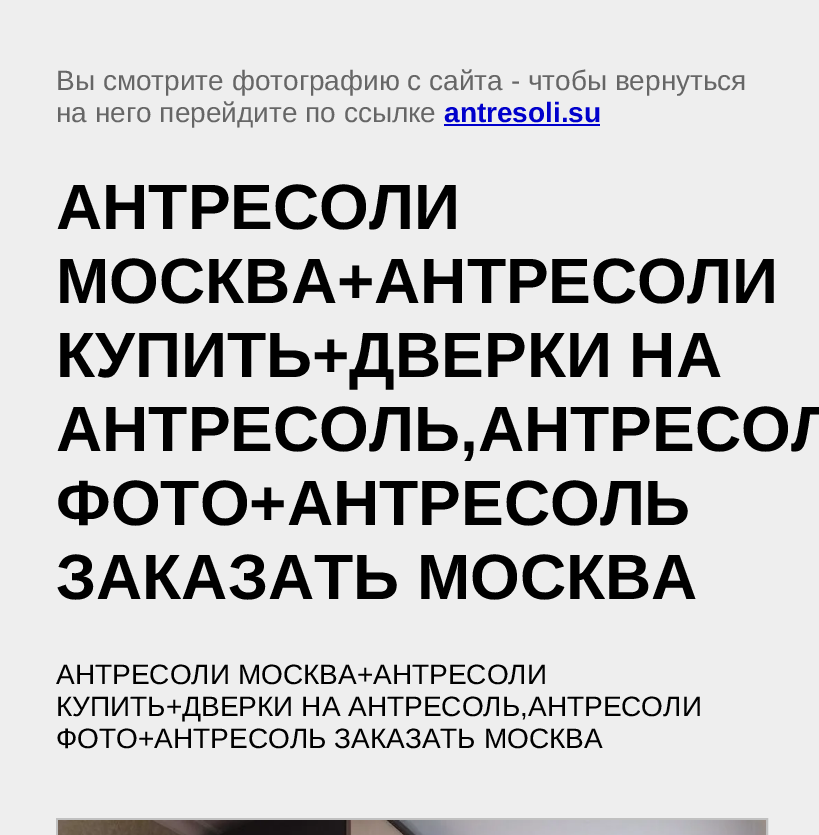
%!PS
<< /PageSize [819 835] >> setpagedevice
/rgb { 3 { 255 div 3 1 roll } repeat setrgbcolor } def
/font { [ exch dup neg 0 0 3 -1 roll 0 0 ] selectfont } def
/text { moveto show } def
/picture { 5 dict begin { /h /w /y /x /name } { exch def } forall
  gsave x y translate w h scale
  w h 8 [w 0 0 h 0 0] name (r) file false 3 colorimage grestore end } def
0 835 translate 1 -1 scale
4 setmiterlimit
238 238 238 rgb
0 0 819 835 rectfill
0 0 204 rgb
444 124 156 2 rectfill
192 192 192 rgb
2 setlinewidth
57 819 710 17 rectstroke
(img_01.rgb) 58 820 708 15 picture
/LiberationSans-Regular 28 font
102 102 102 rgb
(Вы смотрите фотографию с сайта - чтобы вернуться) 56 90 text
(на него перейдите по ссылке) 56 122 text
/LiberationSans-Bold 28 font
0 0 204 rgb
(antresoli.su) 444 122 text
/LiberationSans-Bold 64 font
0 0 0 rgb
(АНТРЕСОЛИ) 56 229 text
(МОСКВА+АНТРЕСОЛИ) 56 303 text
(КУПИТЬ+ДВЕРКИ НА) 56 377 text
(АНТРЕСОЛЬ,АНТРЕСОЛ) 56 451 text
(ФОТО+АНТРЕСОЛЬ) 56 525 text
(ЗАКАЗАТЬ МОСКВА) 56 599 text
/LiberationSans-Regular 28 font
(АНТРЕСОЛИ МОСКВА+АНТРЕСОЛИ) 56 684 text
(КУПИТЬ+ДВЕРКИ НА АНТРЕСОЛЬ,АНТРЕСОЛИ) 56 716 text
(ФОТО+АНТРЕСОЛЬ ЗАКАЗАТЬ МОСКВА) 56 748 text
showpage
